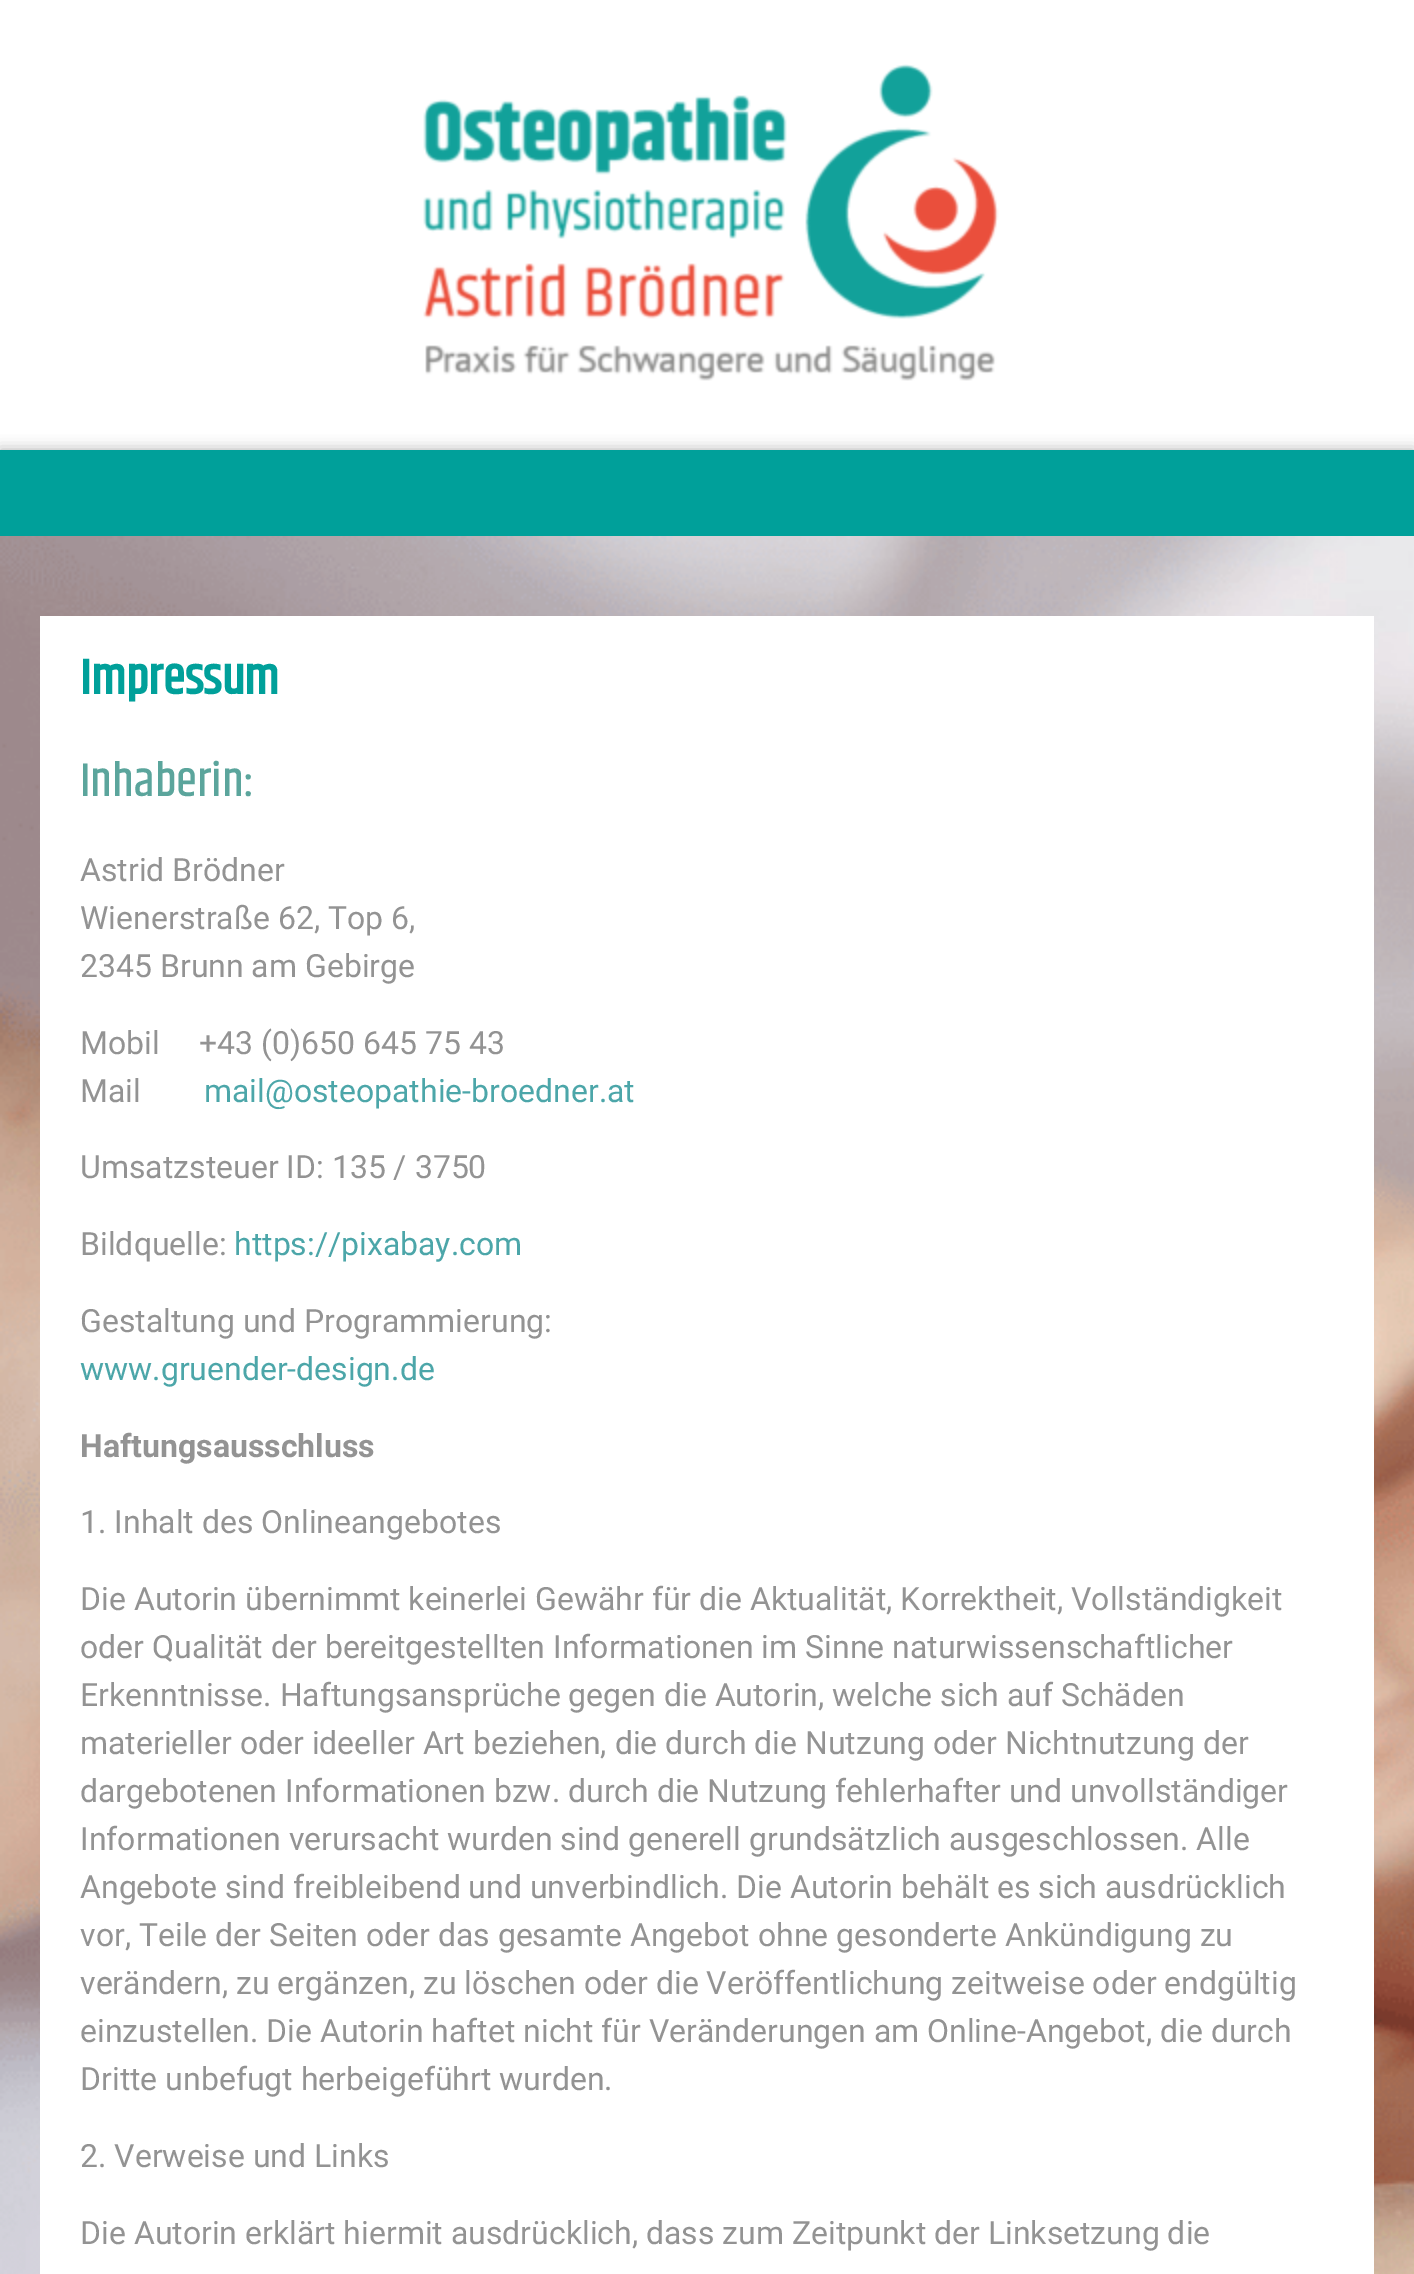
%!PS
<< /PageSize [1414 2274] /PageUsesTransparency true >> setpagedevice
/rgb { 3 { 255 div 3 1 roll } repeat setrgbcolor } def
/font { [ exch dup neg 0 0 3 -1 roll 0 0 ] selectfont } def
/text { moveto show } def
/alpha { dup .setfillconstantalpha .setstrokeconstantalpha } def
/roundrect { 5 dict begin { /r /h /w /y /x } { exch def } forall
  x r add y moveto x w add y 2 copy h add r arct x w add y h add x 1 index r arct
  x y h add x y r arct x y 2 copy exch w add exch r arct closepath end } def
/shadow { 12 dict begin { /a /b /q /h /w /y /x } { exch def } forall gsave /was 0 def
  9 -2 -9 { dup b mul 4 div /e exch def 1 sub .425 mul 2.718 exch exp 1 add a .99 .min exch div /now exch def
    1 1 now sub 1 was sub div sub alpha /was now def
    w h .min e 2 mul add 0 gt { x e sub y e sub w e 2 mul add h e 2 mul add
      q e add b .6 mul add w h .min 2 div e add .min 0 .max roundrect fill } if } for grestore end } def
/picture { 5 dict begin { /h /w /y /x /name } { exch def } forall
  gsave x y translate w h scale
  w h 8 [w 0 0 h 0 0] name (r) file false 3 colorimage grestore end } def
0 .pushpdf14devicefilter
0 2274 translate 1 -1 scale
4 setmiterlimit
255 255 255 rgb
0 0 1414 2274 rectfill
(img_01.rgb) 423 64 576 317 picture
0 0 0 rgb
0 450 1414 86 0 7 0.32 shadow
0 160 154 rgb
0 450 1414 86 rectfill
(img_02.rgb) 0 536 1414 1738 picture
255 255 255 rgb
40 616 1334 1658 rectfill
/Khand-Bold 50 font
0 160 154 rgb
(Impressum) 80 694 text
/Khand-Medium 48 font
91 165 156 rgb
(Inhaberin:) 80 796 text
/Roboto-Regular 32 font
147 147 147 rgb
(Astrid Brödner) 80 881 text
(Wienerstraße 62, Top 6,) 80 929 text
(2345 Brunn am Gebirge) 80 977 text
(Mobil     +43 \(0\)650 645 75 43) 80 1054 text
(Mail) 80 1102 text
76 166 169 rgb
(mail@osteopathie-broedner.at) 204 1102 text
147 147 147 rgb
(Umsatzsteuer ID: 135 / 3750) 80 1178 text
(Bildquelle:) 80 1255 text
76 166 169 rgb
(https://pixabay.com) 234 1255 text
147 147 147 rgb
(Gestaltung und Programmierung:) 80 1332 text
76 166 169 rgb
(www.gruender-design.de) 80 1380 text
/Roboto-Bold 32 font
147 147 147 rgb
(Haftungsausschluss) 80 1457 text
/Roboto-Regular 32 font
(1. Inhalt des Onlineangebotes) 80 1533 text
(Die Autorin übernimmt keinerlei Gewähr für die Aktualität, Korrektheit, Vollständigkeit) 80 1610 text
(oder Qualität der bereitgestellten Informationen im Sinne naturwissenschaftlicher) 80 1658 text
(Erkenntnisse. Haftungsansprüche gegen die Autorin, welche sich auf Schäden) 80 1706 text
(materieller oder ideeller Art beziehen, die durch die Nutzung oder Nichtnutzung der) 80 1754 text
(dargebotenen Informationen bzw. durch die Nutzung fehlerhafter und unvollständiger) 80 1802 text
(Informationen verursacht wurden sind generell grundsätzlich ausgeschlossen. Alle) 80 1850 text
(Angebote sind freibleibend und unverbindlich. Die Autorin behält es sich ausdrücklich) 80 1898 text
(vor, Teile der Seiten oder das gesamte Angebot ohne gesonderte Ankündigung zu) 80 1946 text
(verändern, zu ergänzen, zu löschen oder die Veröffentlichung zeitweise oder endgültig) 80 1994 text
(einzustellen. Die Autorin haftet nicht für Veränderungen am Online-Angebot, die durch) 80 2042 text
(Dritte unbefugt herbeigeführt wurden.) 80 2090 text
(2. Verweise und Links) 80 2167 text
(Die Autorin erklärt hiermit ausdrücklich, dass zum Zeitpunkt der Linksetzung die) 80 2244 text
.poppdf14devicefilter showpage
